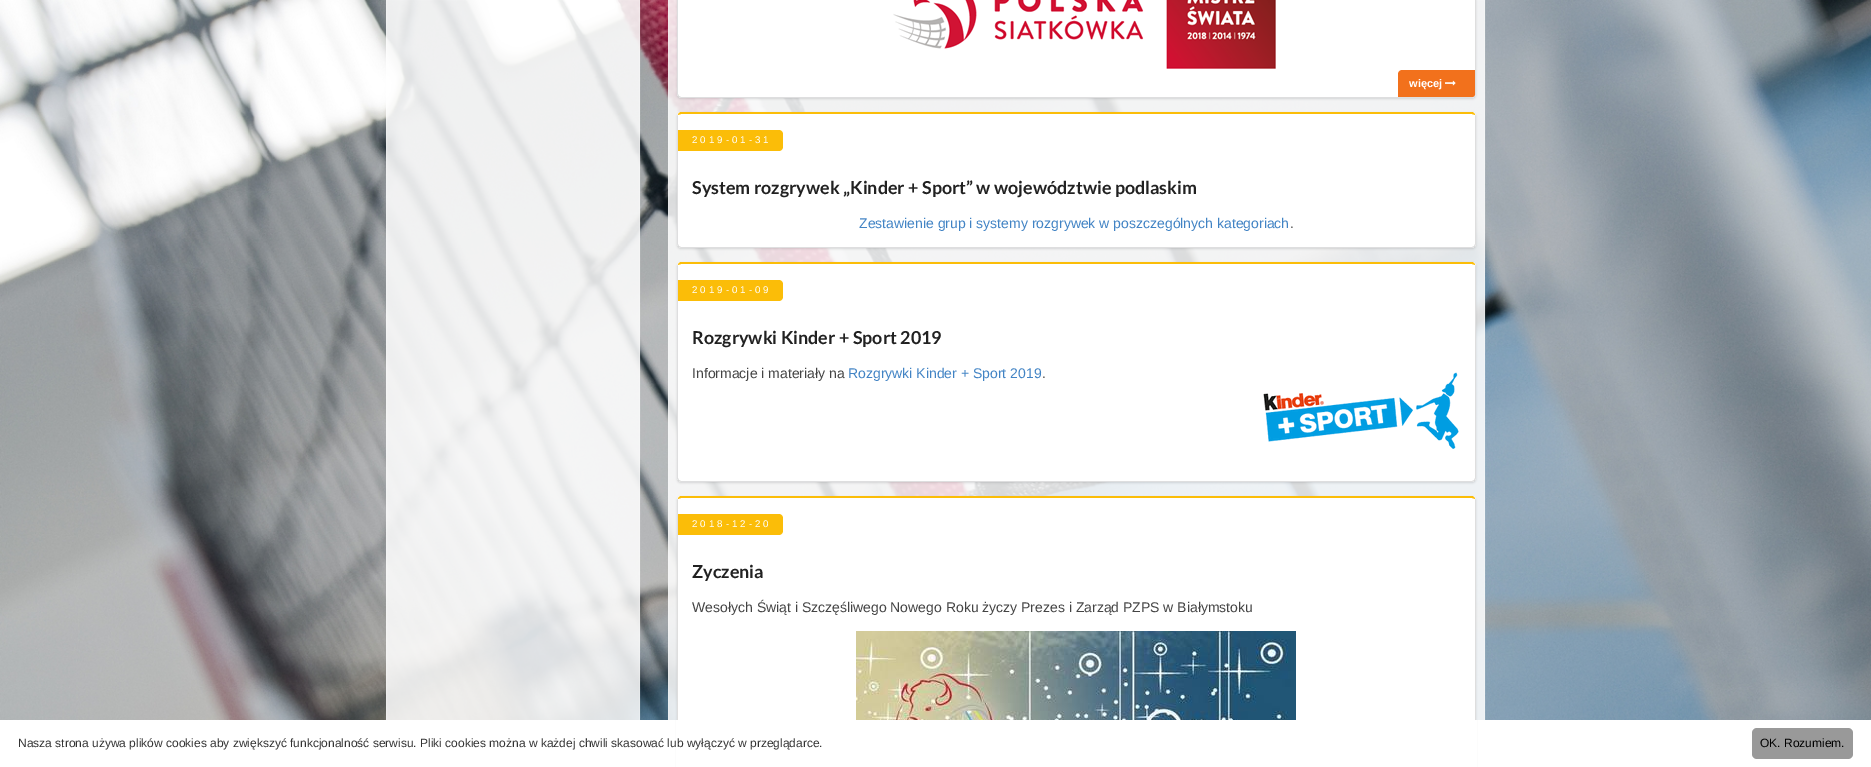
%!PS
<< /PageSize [1871 767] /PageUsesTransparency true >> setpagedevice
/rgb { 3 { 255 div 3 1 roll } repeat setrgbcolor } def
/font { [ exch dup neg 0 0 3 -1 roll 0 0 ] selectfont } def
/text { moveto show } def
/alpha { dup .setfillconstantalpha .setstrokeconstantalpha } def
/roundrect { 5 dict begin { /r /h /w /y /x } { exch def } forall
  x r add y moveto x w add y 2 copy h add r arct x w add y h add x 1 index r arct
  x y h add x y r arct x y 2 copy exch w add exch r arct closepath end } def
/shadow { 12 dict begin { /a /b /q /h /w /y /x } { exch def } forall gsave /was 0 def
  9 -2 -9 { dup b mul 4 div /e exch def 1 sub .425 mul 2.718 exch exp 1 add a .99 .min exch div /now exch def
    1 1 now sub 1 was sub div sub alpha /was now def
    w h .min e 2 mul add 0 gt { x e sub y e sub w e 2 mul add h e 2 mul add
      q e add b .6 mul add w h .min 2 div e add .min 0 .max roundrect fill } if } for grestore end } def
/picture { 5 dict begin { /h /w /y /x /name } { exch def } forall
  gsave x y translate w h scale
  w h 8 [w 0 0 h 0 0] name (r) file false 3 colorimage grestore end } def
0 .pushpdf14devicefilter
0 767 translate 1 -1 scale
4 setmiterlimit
255 255 255 rgb
0 0 1871 767 rectfill
(img_01.rgb) 0 0 1871 720 picture
0.85 alpha
386 0 254 720 rectfill
0.2 alpha
386.5 -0.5 253 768 rectstroke
0.85 alpha
668 0 817 720 rectfill
0.2 alpha
668.5 -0.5 816 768 rectstroke
1 alpha
34 36 38 rgb
677 -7 799 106 4 1 0.15 shadow
255 255 255 rgb
677 -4 799 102 4 roundrect fill
222 222 222 rgb
1476 94 moveto 0 -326 rlineto -1 -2 rlineto 0 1 rlineto 0 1 rlineto 0 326 rlineto -1 2 rlineto 1 1 rlineto closepath fill
0.15 alpha
34 36 38 rgb
681 98 moveto 791 0 rlineto 3 -1 rlineto -1 -1 rlineto -2 1 rlineto -791 0 rlineto -2 -1 rlineto -1 1 rlineto closepath fill
677 -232 moveto 0 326 rlineto 1 3 rlineto 1 -1 rlineto -1 -2 rlineto 0 -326 rlineto 0 -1 rlineto 0 -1 rlineto closepath fill
1 alpha
(img_02.rgb) 893 0 383 69 picture
242 113 28 rgb
1402 70 moveto 73 0 rlineto 0 24 rlineto 0 1.5 -1.5 3 -3 3 rcurveto -74 0 rlineto 0 -23 rlineto 0 -2 2 -4 4 -4 rcurveto closepath fill
(img_03.rgb) 1445 80 11 6 picture
34 36 38 rgb
677 113 799 136 4 1 0.15 shadow
255 255 255 rgb
677 112 799 136 4 roundrect fill
251 189 8 rgb
681 112 moveto -1 0 -2 1 -3 2 rcurveto 0 1 rlineto 3 -1 rlineto 791 0 rlineto 3 1 rlineto 0 -1 rlineto -1 -1 -2 -2 -3 -2 rcurveto closepath fill
222 222 222 rgb
1476 244 moveto 0 -128 rlineto -1 -2 rlineto 0 1 rlineto 0 1 rlineto 0 128 rlineto -1 2 rlineto 1 1 rlineto closepath fill
0.15 alpha
34 36 38 rgb
681 248 moveto 791 0 rlineto 3 -1 rlineto -1 -1 rlineto -2 1 rlineto -791 0 rlineto -2 -1 rlineto -1 1 rlineto closepath fill
677 116 moveto 0 128 rlineto 1 3 rlineto 1 -1 rlineto -1 -2 rlineto 0 -128 rlineto 0 -1 rlineto 0 -1 rlineto closepath fill
1 alpha
251 189 8 rgb
678 151 moveto 0 -21 rlineto 101 0 rlineto 2 0 4 2 4 4 rcurveto 0 13 rlineto 0 2 -2 4 -4 4 rcurveto closepath fill
34 36 38 rgb
677 263 799 220 4 1 0.15 shadow
255 255 255 rgb
677 262 799 220 4 roundrect fill
251 189 8 rgb
681 262 moveto -1 0 -2 1 -3 2 rcurveto 0 1 rlineto 3 -1 rlineto 791 0 rlineto 3 1 rlineto 0 -1 rlineto -1 -1 -2 -2 -3 -2 rcurveto closepath fill
222 222 222 rgb
1476 478 moveto 0 -212 rlineto -1 -2 rlineto 0 1 rlineto 0 1 rlineto 0 212 rlineto -1 2 rlineto 1 1 rlineto closepath fill
0.15 alpha
34 36 38 rgb
681 482 moveto 791 0 rlineto 3 -1 rlineto -1 -1 rlineto -2 1 rlineto -791 0 rlineto -2 -1 rlineto -1 1 rlineto closepath fill
677 266 moveto 0 212 rlineto 0 1 1 2 1 3 rcurveto 1 -1 rlineto -1 -2 rlineto 0 -212 rlineto 0 -1 rlineto 0 -1 rlineto closepath fill
1 alpha
251 189 8 rgb
678 301 moveto 0 -21 rlineto 101 0 rlineto 2 0 4 2 4 4 rcurveto 0 13 rlineto 0 2 -2 4 -4 4 rcurveto closepath fill
(img_04.rgb) 1263 372 196 77 picture
34 36 38 rgb
677 497 799 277 4 1 0.15 shadow
255 255 255 rgb
677 496 799 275 4 roundrect fill
251 189 8 rgb
681 496 moveto -1 0 -2 1 -3 2 rcurveto 0 1 rlineto 3 -1 rlineto 791 0 rlineto 3 1 rlineto 0 -1 rlineto -1 -1 -2 -2 -3 -2 rcurveto closepath fill
222 222 222 rgb
1476 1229 moveto 0 -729 rlineto -1 -2 rlineto 0 1 rlineto 0 1 rlineto 0 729 rlineto -1 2 rlineto 1 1 rlineto closepath fill
677 500 moveto 0 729 rlineto 1 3 rlineto 1 -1 rlineto -1 -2 rlineto 0 -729 rlineto 0 -1 rlineto 0 -1 rlineto closepath fill
251 189 8 rgb
678 535 moveto 0 -21 rlineto 101 0 rlineto 2 0 4 2 4 4 rcurveto 0 13 rlineto 0 2 -2 4 -4 4 rcurveto closepath fill
(img_05.rgb) 856 631 440 89 picture
255 255 255 rgb
676 720 801 47 rectfill
153 153 153 rgb
1752 728 101 31 5 roundrect fill
/Arimo-Bold 11 font
255 255 255 rgb
(więcej) 1409 87 text
/Arimo-Regular 9.75 font
692 143 moveto 3 0 (2019-01-31) ashow
/Lato-Bold 17.9 font
33 33 33 rgb
(System rozgrywek „Kinder + Sport” w województwie podlaskim) 692 194 text
/Arimo-Regular 14 font
65 131 196 rgb
(Zestawienie grup i systemy rozgrywek w poszczególnych kategoriach) 859 228 text
68 68 68 rgb
(.) 1290 228 text
/Arimo-Regular 9.75 font
255 255 255 rgb
692 293 moveto 3 0 (2019-01-09) ashow
/Lato-Bold 17.9 font
33 33 33 rgb
(Rozgrywki Kinder + Sport 2019) 692 344 text
/Arimo-Regular 14 font
68 68 68 rgb
(Informacje i materiały na) 692 378 text
65 131 196 rgb
(Rozgrywki Kinder + Sport 2019) 848 378 text
68 68 68 rgb
(.) 1042 378 text
/Arimo-Regular 9.75 font
255 255 255 rgb
692 527 moveto 3 0 (2018-12-20) ashow
/Lato-Bold 17.9 font
33 33 33 rgb
(Zyczenia) 692 578 text
/Arimo-Regular 14 font
68 68 68 rgb
(Wesołych Świąt i Szczęśliwego Nowego Roku życzy Prezes i Zarząd PZPS w Białymstoku) 692 612 text
/LiberationSans-Regular 12 font
51 51 51 rgb
(Nasza strona używa plików cookies aby zwiększyć funkcjonalność serwisu. Pliki cookies można w każdej chwili skasować lub wyłączyć w przeglądarce.) 18 747 text
0 0 0 rgb
(OK. Rozumiem.) 1760 747 text
.poppdf14devicefilter showpage
